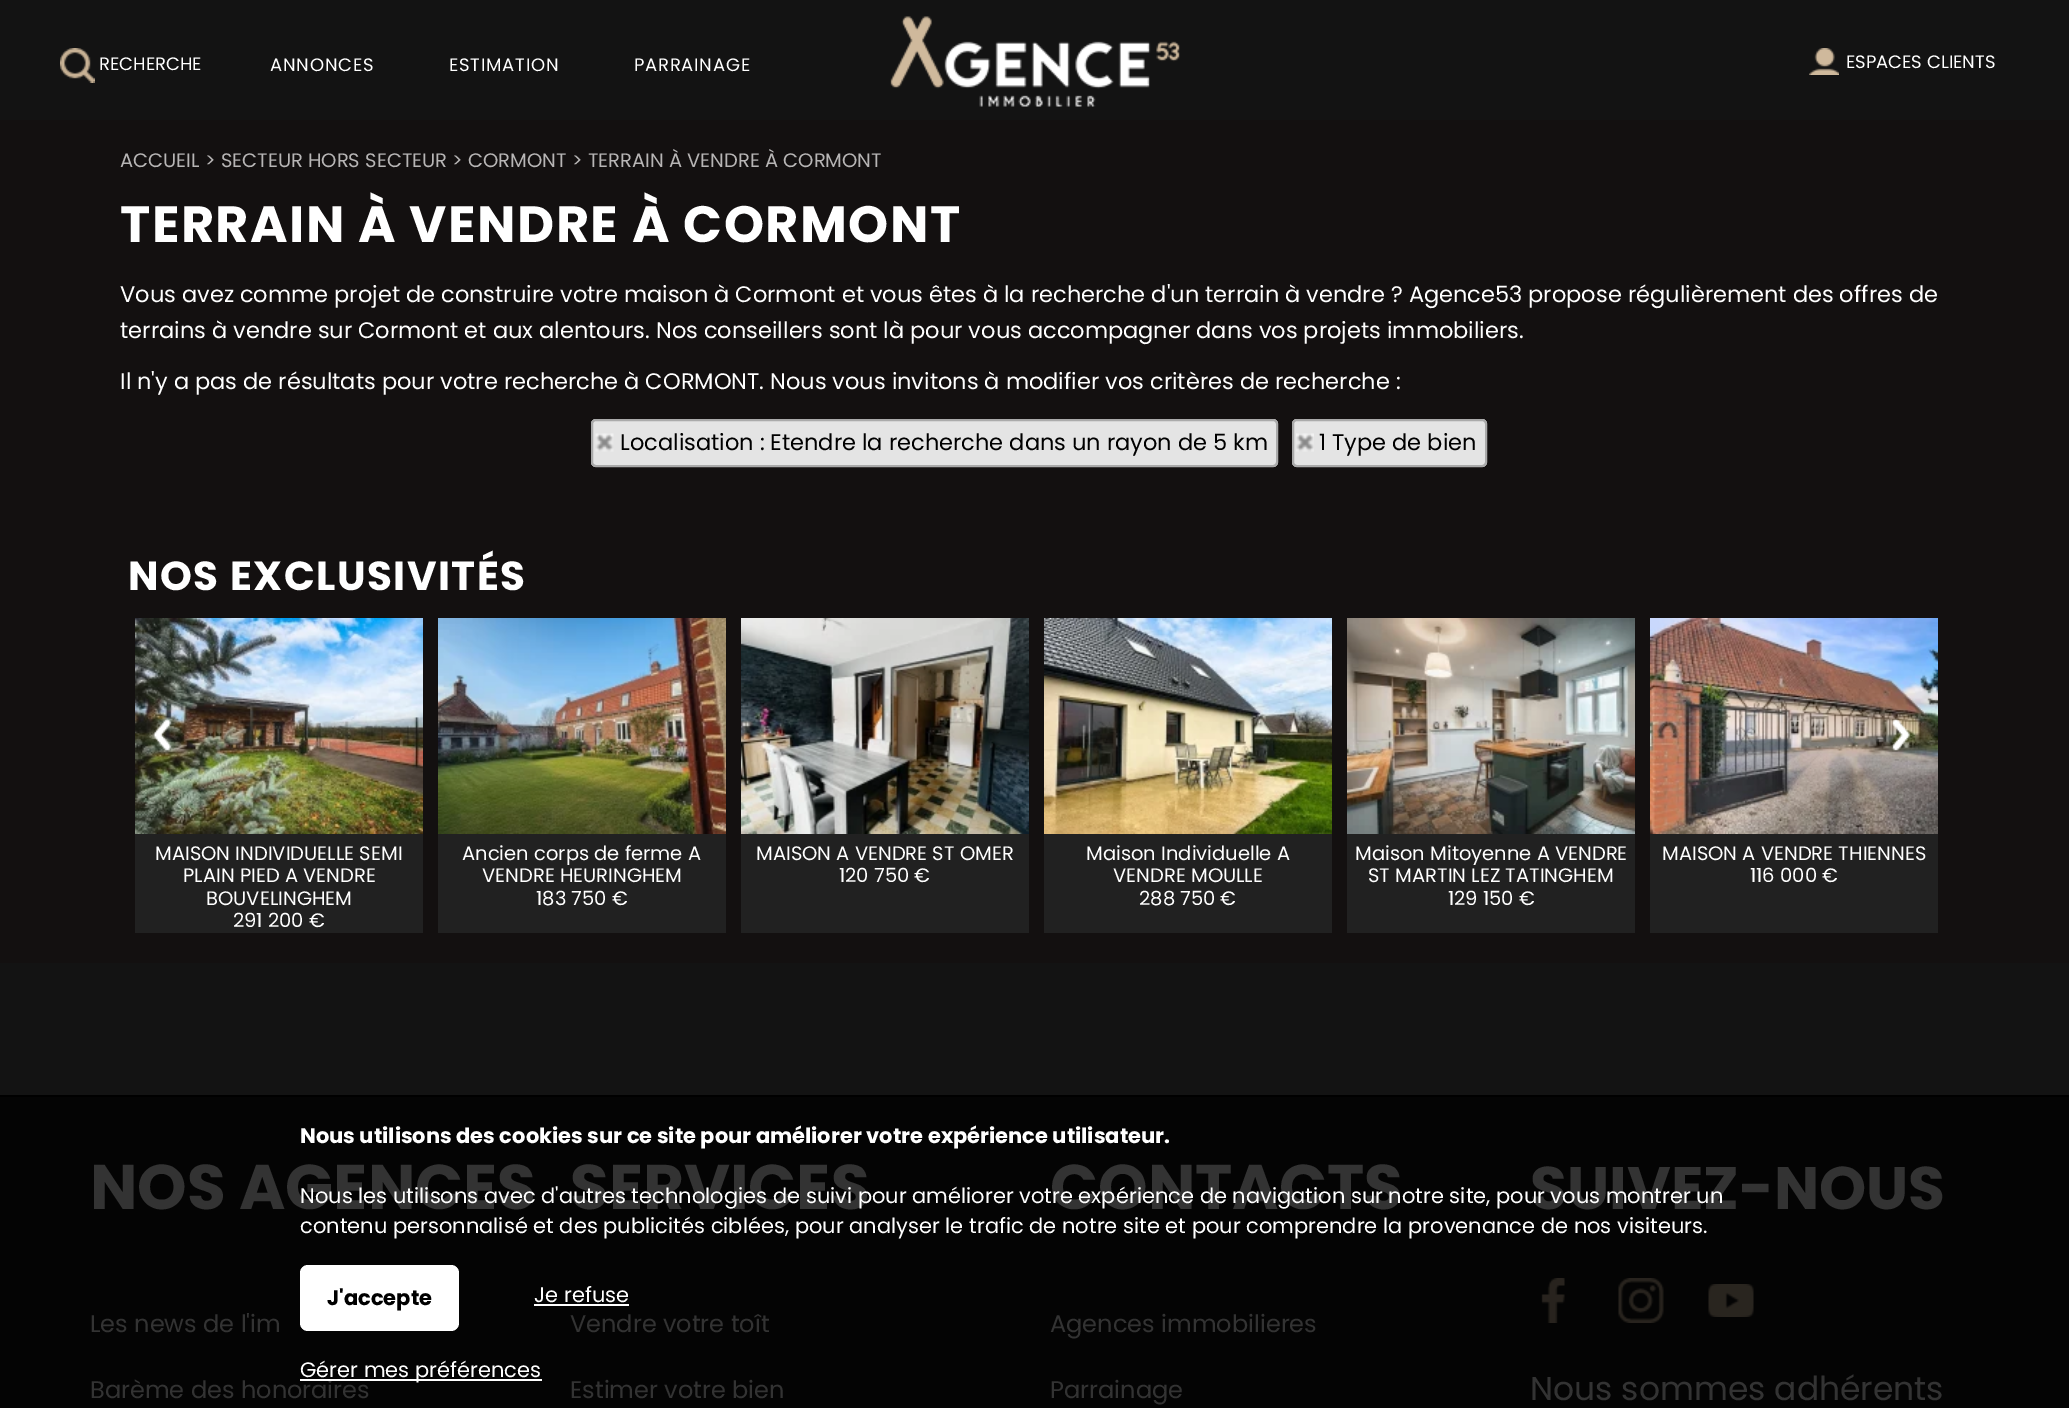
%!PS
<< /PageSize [2069 1408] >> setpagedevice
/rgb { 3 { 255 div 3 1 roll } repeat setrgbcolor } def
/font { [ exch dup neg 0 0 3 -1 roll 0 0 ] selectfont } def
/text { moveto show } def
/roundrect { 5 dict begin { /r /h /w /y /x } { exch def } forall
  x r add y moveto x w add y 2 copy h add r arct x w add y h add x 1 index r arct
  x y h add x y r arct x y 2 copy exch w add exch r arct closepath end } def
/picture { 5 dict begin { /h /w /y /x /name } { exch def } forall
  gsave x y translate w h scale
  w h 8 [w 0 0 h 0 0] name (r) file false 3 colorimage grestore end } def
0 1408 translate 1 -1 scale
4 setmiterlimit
19 16 16 rgb
0 0 2069 1408 rectfill
19 19 19 rgb
0 0 2069 120 rectfill
(img_01.rgb) 60 48 35 35 picture
(img_02.rgb) 890 16 290 91 picture
(img_03.rgb) 1809 48 30 27 picture
228 228 228 rgb
591 419 687 48 5 roundrect fill
(img_04.rgb) 595 433 19 19 picture
170 170 170 rgb
2 setlinewidth
592 420 685 46 4 roundrect stroke
228 228 228 rgb
1292 419 195 48 5 roundrect fill
(img_05.rgb) 1296 433 18 19 picture
170 170 170 rgb
1293 420 193 46 4 roundrect stroke
(img_08.rgb) 135 618 288 216 picture
(img_06.rgb) 152 718 20 33 picture
(img_13.rgb) 1650 618 288 216 picture
(img_07.rgb) 1891 718 19 33 picture
33 33 33 rgb
135 834 288 99 rectfill
(img_09.rgb) 438 618 288 216 picture
438 834 288 99 rectfill
(img_10.rgb) 741 618 288 216 picture
741 834 288 99 rectfill
(img_11.rgb) 1044 618 288 216 picture
1044 834 288 99 rectfill
(img_12.rgb) 1347 618 288 216 picture
1347 834 288 99 rectfill
1650 834 288 99 rectfill
0 0 0 rgb
0 1095 2069 2 rectfill
4 4 4 rgb
0 1097 2069 311 rectfill
255 255 255 rgb
300 1265 159 66 8 roundrect fill
534 1304 95 2 rectfill
19 19 19 rgb
0 963 2069 132 rectfill
(img_14.rgb) 1541 1278 24 45 picture
(img_15.rgb) 1618 1278 46 45 picture
(img_16.rgb) 1708 1284 46 33 picture
/Poppins-Regular 18 font
255 255 255 rgb
(RECHERCHE) 99 70 text
(ESPACES CLIENTS) 1846 68 text
270 71 moveto 0.75 0 (ANNONCES) ashow
449 71 moveto 0.75 0 (ESTIMATION) ashow
634 71 moveto 0.75 0 (PARRAINAGE) ashow
/Poppins-Regular 19.5 font
183 181 181 rgb
(ACCUEIL > SECTEUR HORS SECTEUR > CORMONT > TERRAIN À VENDRE À CORMONT) 120 167 text
/Poppins-Bold 51 font
255 255 255 rgb
120 242 moveto 1.5 0 (TERRAIN À VENDRE À CORMONT) ashow
/Poppins-Regular 22.5 font
(Vous avez comme projet de construire votre maison à Cormont et vous êtes à la recherche d'un terrain à vendre ? Agence53 propose régulièrement des offres de) 120 302 text
(terrains à vendre sur Cormont et aux alentours. Nos conseillers sont là pour vous accompagner dans vos projets immobiliers.) 120 338 text
(Il n'y a pas de résultats pour votre recherche à CORMONT. Nous vous invitons à modifier vos critères de recherche :) 120 389 text
0 0 0 rgb
(Localisation : Etendre la recherche dans un rayon de 5 km) 620 450 text
(1 Type de bien) 1319 450 text
/Poppins-Bold 40.5 font
255 255 255 rgb
128 590 moveto 1.5 0 (NOS EXCLUSIVITÉS) ashow
/Poppins-Regular 19.5 font
(MAISON INDIVIDUELLE SEMI) 155 860 text
(PLAIN PIED A VENDRE) 183 882 text
(BOUVELINGHEM) 206 905 text
(291 200 €) 233 927 text
(Ancien corps de ferme A) 462 860 text
(VENDRE HEURINGHEM) 482 882 text
(183 750 €) 536 905 text
(MAISON A VENDRE ST OMER) 756 860 text
(120 750 €) 839 882 text
(Maison Individuelle A) 1086 860 text
(VENDRE MOULLE) 1113 882 text
(288 750 €) 1139 905 text
(Maison Mitoyenne A VENDRE) 1355 860 text
(ST MARTIN LEZ TATINGHEM) 1368 882 text
(129 150 €) 1448 905 text
(MAISON A VENDRE THIENNES) 1662 860 text
(116 000 €) 1750 882 text
/Poppins-Bold 21 font
(Nous utilisons des cookies sur ce site pour améliorer votre expérience utilisateur.) 300 1143 text
/Poppins-Regular 21 font
(contenu personnalisé et des publicités ciblées, pour analyser le trafic de notre site et pour comprendre la provenance de nos visiteurs.) 300 1233 text
/Poppins-Bold 21 font
0 0 0 rgb
(J'accepte) 327 1305 text
/Poppins-Regular 21 font
255 255 255 rgb
(Je refuse) 534 1302 text
/Poppins-Bold 63 font
51 51 51 rgb
(NOS AGENCES) 90 1209 text
/Poppins-Regular 24 font
(Les news de l'im) 90 1332 text
(Barème des honoraires) 90 1398 text
255 255 255 rgb
300 1379 242 2 rectfill
/Poppins-Regular 21 font
(Gérer mes préférences) 300 1377 text
/Poppins-Bold 63 font
51 51 51 rgb
(SERVICES) 570 1209 text
/Poppins-Regular 24 font
(Vendre votre toît) 570 1332 text
(Estimer votre bien) 570 1398 text
/Poppins-Bold 63 font
(CONTACTS) 1050 1209 text
/Poppins-Regular 24 font
(Agences immobilieres) 1050 1332 text
(Parrainage) 1050 1398 text
/Poppins-Bold 60 font
(SUIVEZ-NOUS) 1530 1209 text
/Poppins-Regular 21 font
255 255 255 rgb
(Nous les utilisons avec d'autres technologies de suivi pour améliorer votre expérience de navigation sur notre site, pour vous montrer un) 300 1203 text
/Poppins-Regular 33 font
51 51 51 rgb
(Nous sommes adhérents) 1530 1400 text
showpage
